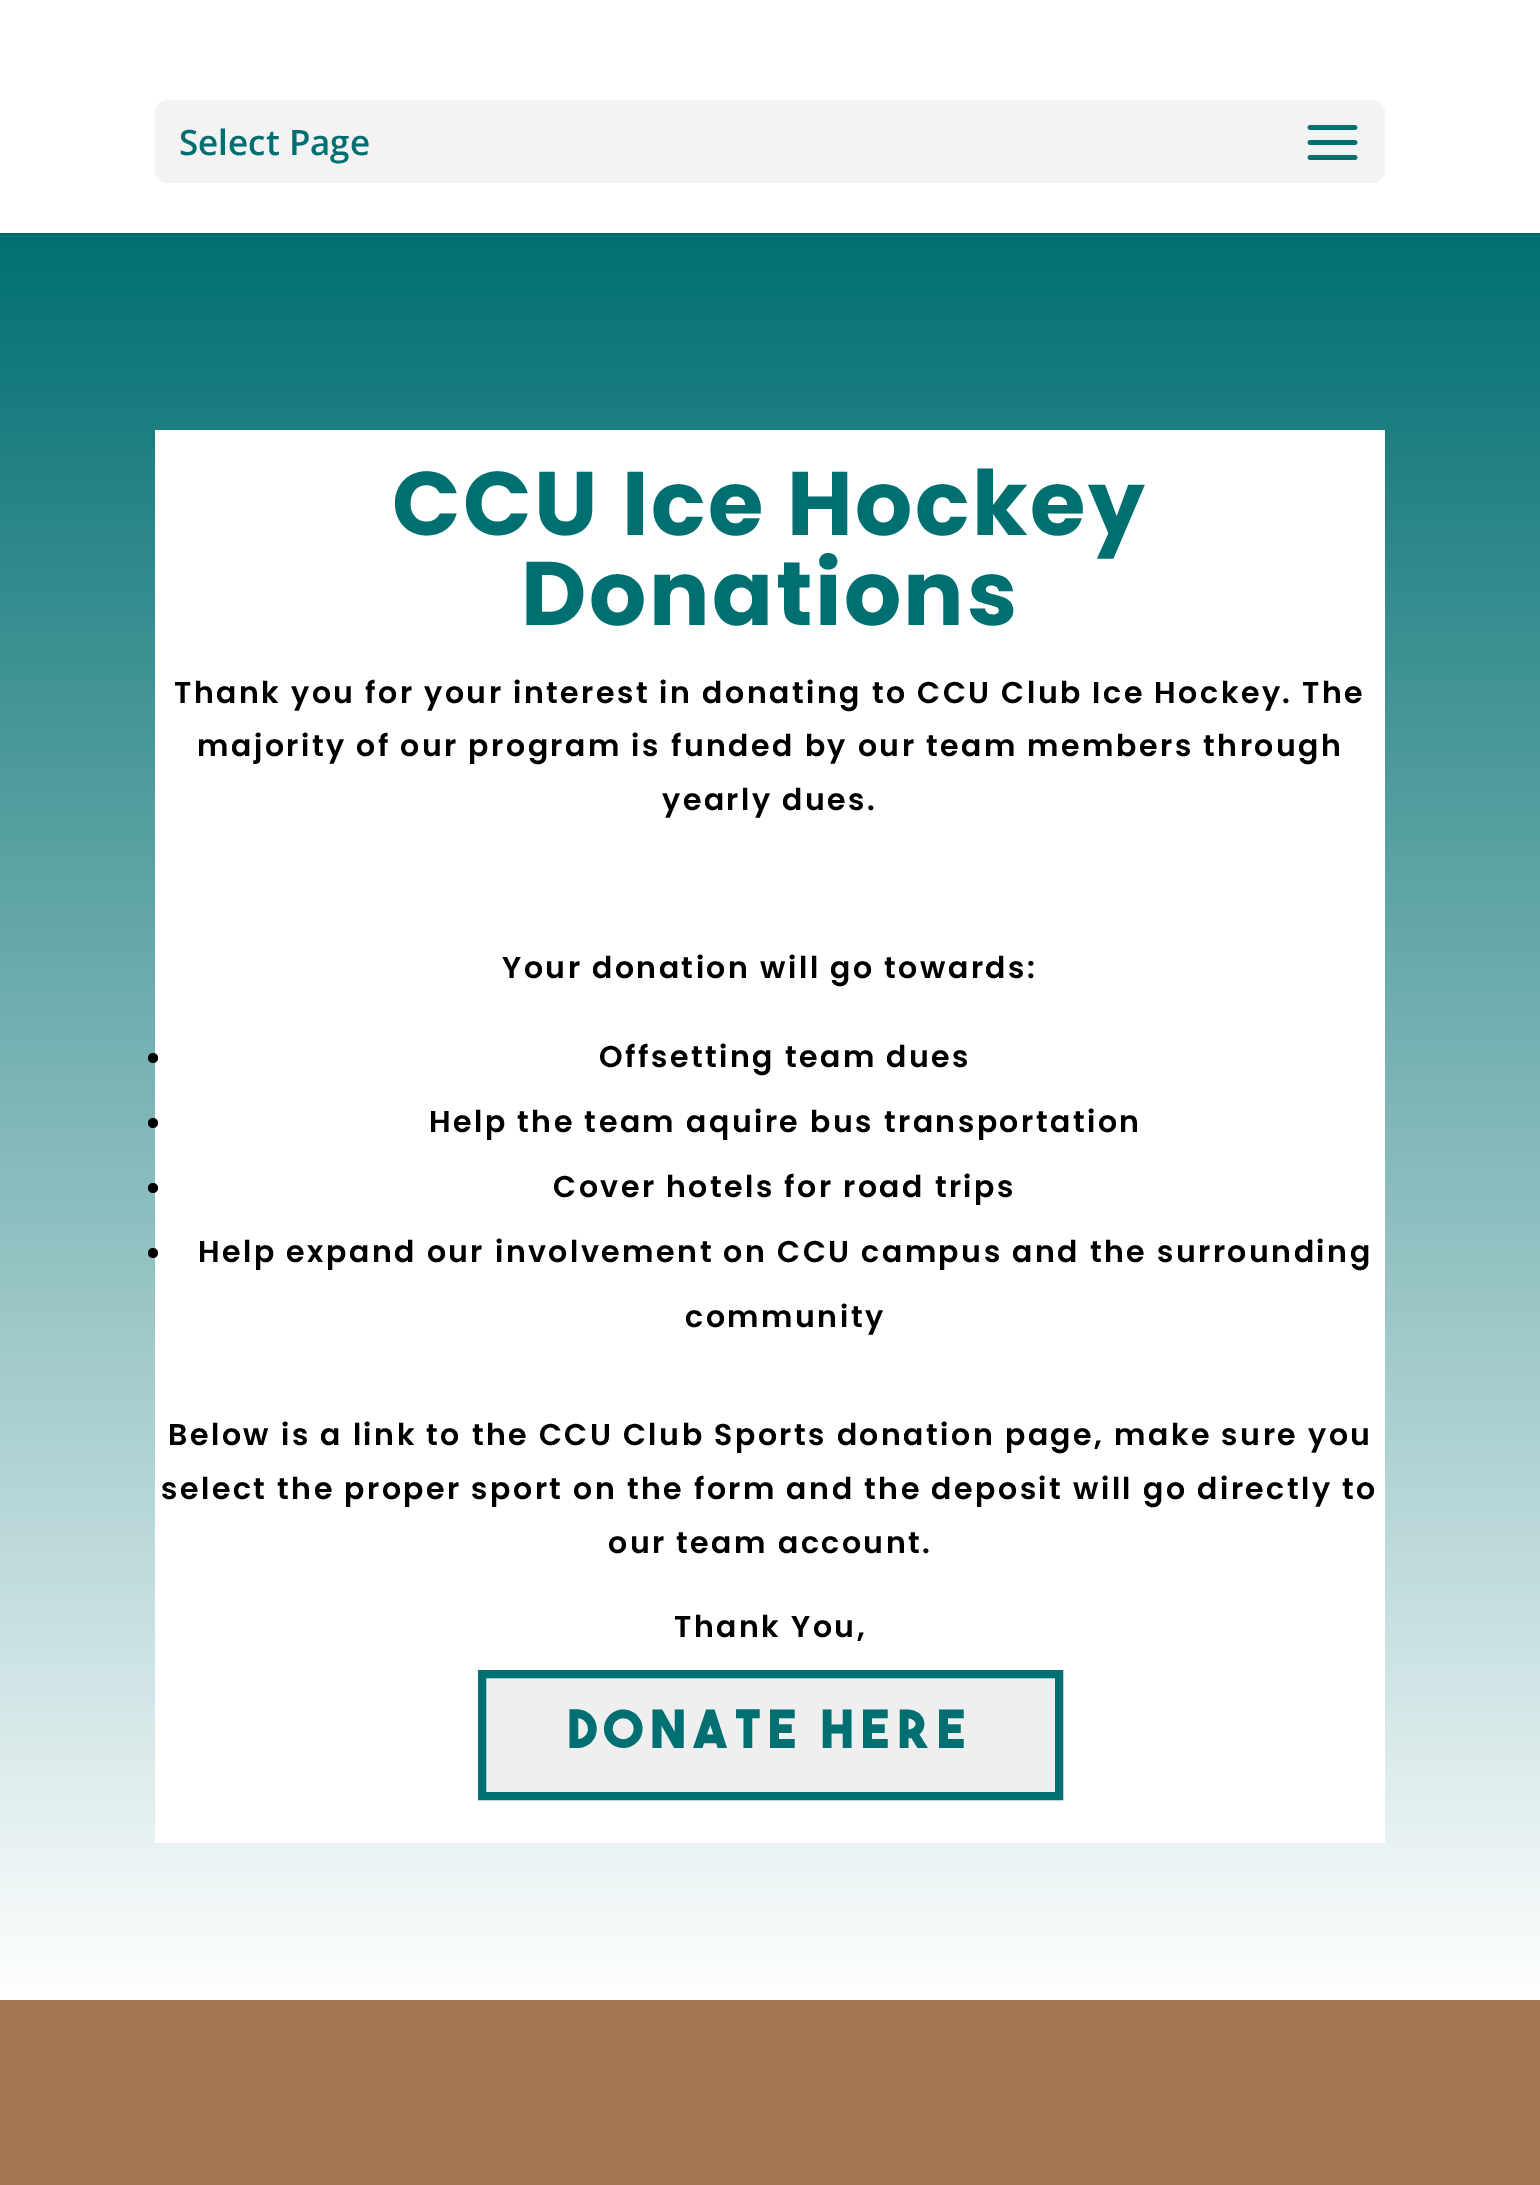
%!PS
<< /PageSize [1540 2185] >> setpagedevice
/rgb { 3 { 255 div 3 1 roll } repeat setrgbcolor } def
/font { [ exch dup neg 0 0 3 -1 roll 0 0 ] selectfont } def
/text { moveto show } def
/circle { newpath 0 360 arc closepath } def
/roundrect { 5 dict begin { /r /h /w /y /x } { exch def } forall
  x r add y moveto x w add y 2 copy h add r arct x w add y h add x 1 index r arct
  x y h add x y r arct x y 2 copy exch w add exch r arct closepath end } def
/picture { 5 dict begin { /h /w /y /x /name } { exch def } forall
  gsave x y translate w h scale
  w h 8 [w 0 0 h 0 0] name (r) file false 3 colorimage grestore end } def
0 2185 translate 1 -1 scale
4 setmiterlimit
162 119 82 rgb
0 0 1540 2185 rectfill
1 100 102 rgb
0 233 1540 2 rectfill
255 255 255 rgb
0 0 1540 233 rectfill
243 243 243 rgb
155 100 1230 83 13 roundrect fill
(img_01.rgb) 1307 125 51 35 picture
gsave 0 235 moveto 1540 0 rlineto 0 1765 rlineto -1540 0 rlineto closepath clip newpath
<< /ShadingType 2 /ColorSpace /DeviceRGB /Coords [770 230 770 2000] /Extend [true true] /Function << /FunctionType 2 /Domain [0 1] /C0 [0 0.435 0.443] /C1 [1 1 1] /N 1 >> >> shfill grestore
255 255 255 rgb
155 430 1230 1413 rectfill
0 0 0 rgb
153 1058 5 circle fill
153 1123 5 circle fill
153 1188 5 circle fill
153 1253 5 circle fill
239 239 239 rgb
482 1674 moveto 577 0 rlineto 0 122 rlineto -577 0 rlineto closepath gsave fill grestore
0 111 113 rgb
8 setlinewidth
stroke
/OpenSans-SemiBold 35 font
(Select Page) 179 155 text
/Poppins-Bold 90 font
392 535 moveto 2.5 0 (CCU Ice Hockey) ashow
521 625 moveto 2.5 0 (Donations) ashow
/Poppins-SemiBold 30 font
0 0 0 rgb
174 703 moveto 2.5 0 (Thank you for your interest in donating to CCU Club Ice Hockey. The) ashow
197 756 moveto 2.5 0 (majority of our program is funded by our team members through) ashow
662 810 moveto 2.5 0 (yearly dues.) ashow
502 978 moveto 2.5 0 (Your donation will go towards:) ashow
599 1067 moveto 2.5 0 (Offsetting team dues) ashow
429 1132 moveto 2.5 0 (Help the team aquire bus transportation) ashow
553 1197 moveto 2.5 0 (Cover hotels for road trips) ashow
198 1262 moveto 2.5 0 (Help expand our involvement on CCU campus and the surrounding) ashow
685 1327 moveto 2.5 0 (community) ashow
168 1445 moveto 2.5 0 (Below is a link to the CCU Club Sports donation page, make sure you) ashow
161 1499 moveto 2.5 0 (select the proper sport on the form and the deposit will go directly to) ashow
608 1553 moveto 2.5 0 (our team account.) ashow
674 1637 moveto 2.5 0 (Thank You,) ashow
/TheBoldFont-Bold 52.5 font
0 111 113 rgb
568 1748 moveto 7.5 0 (Donate Here) ashow
showpage
